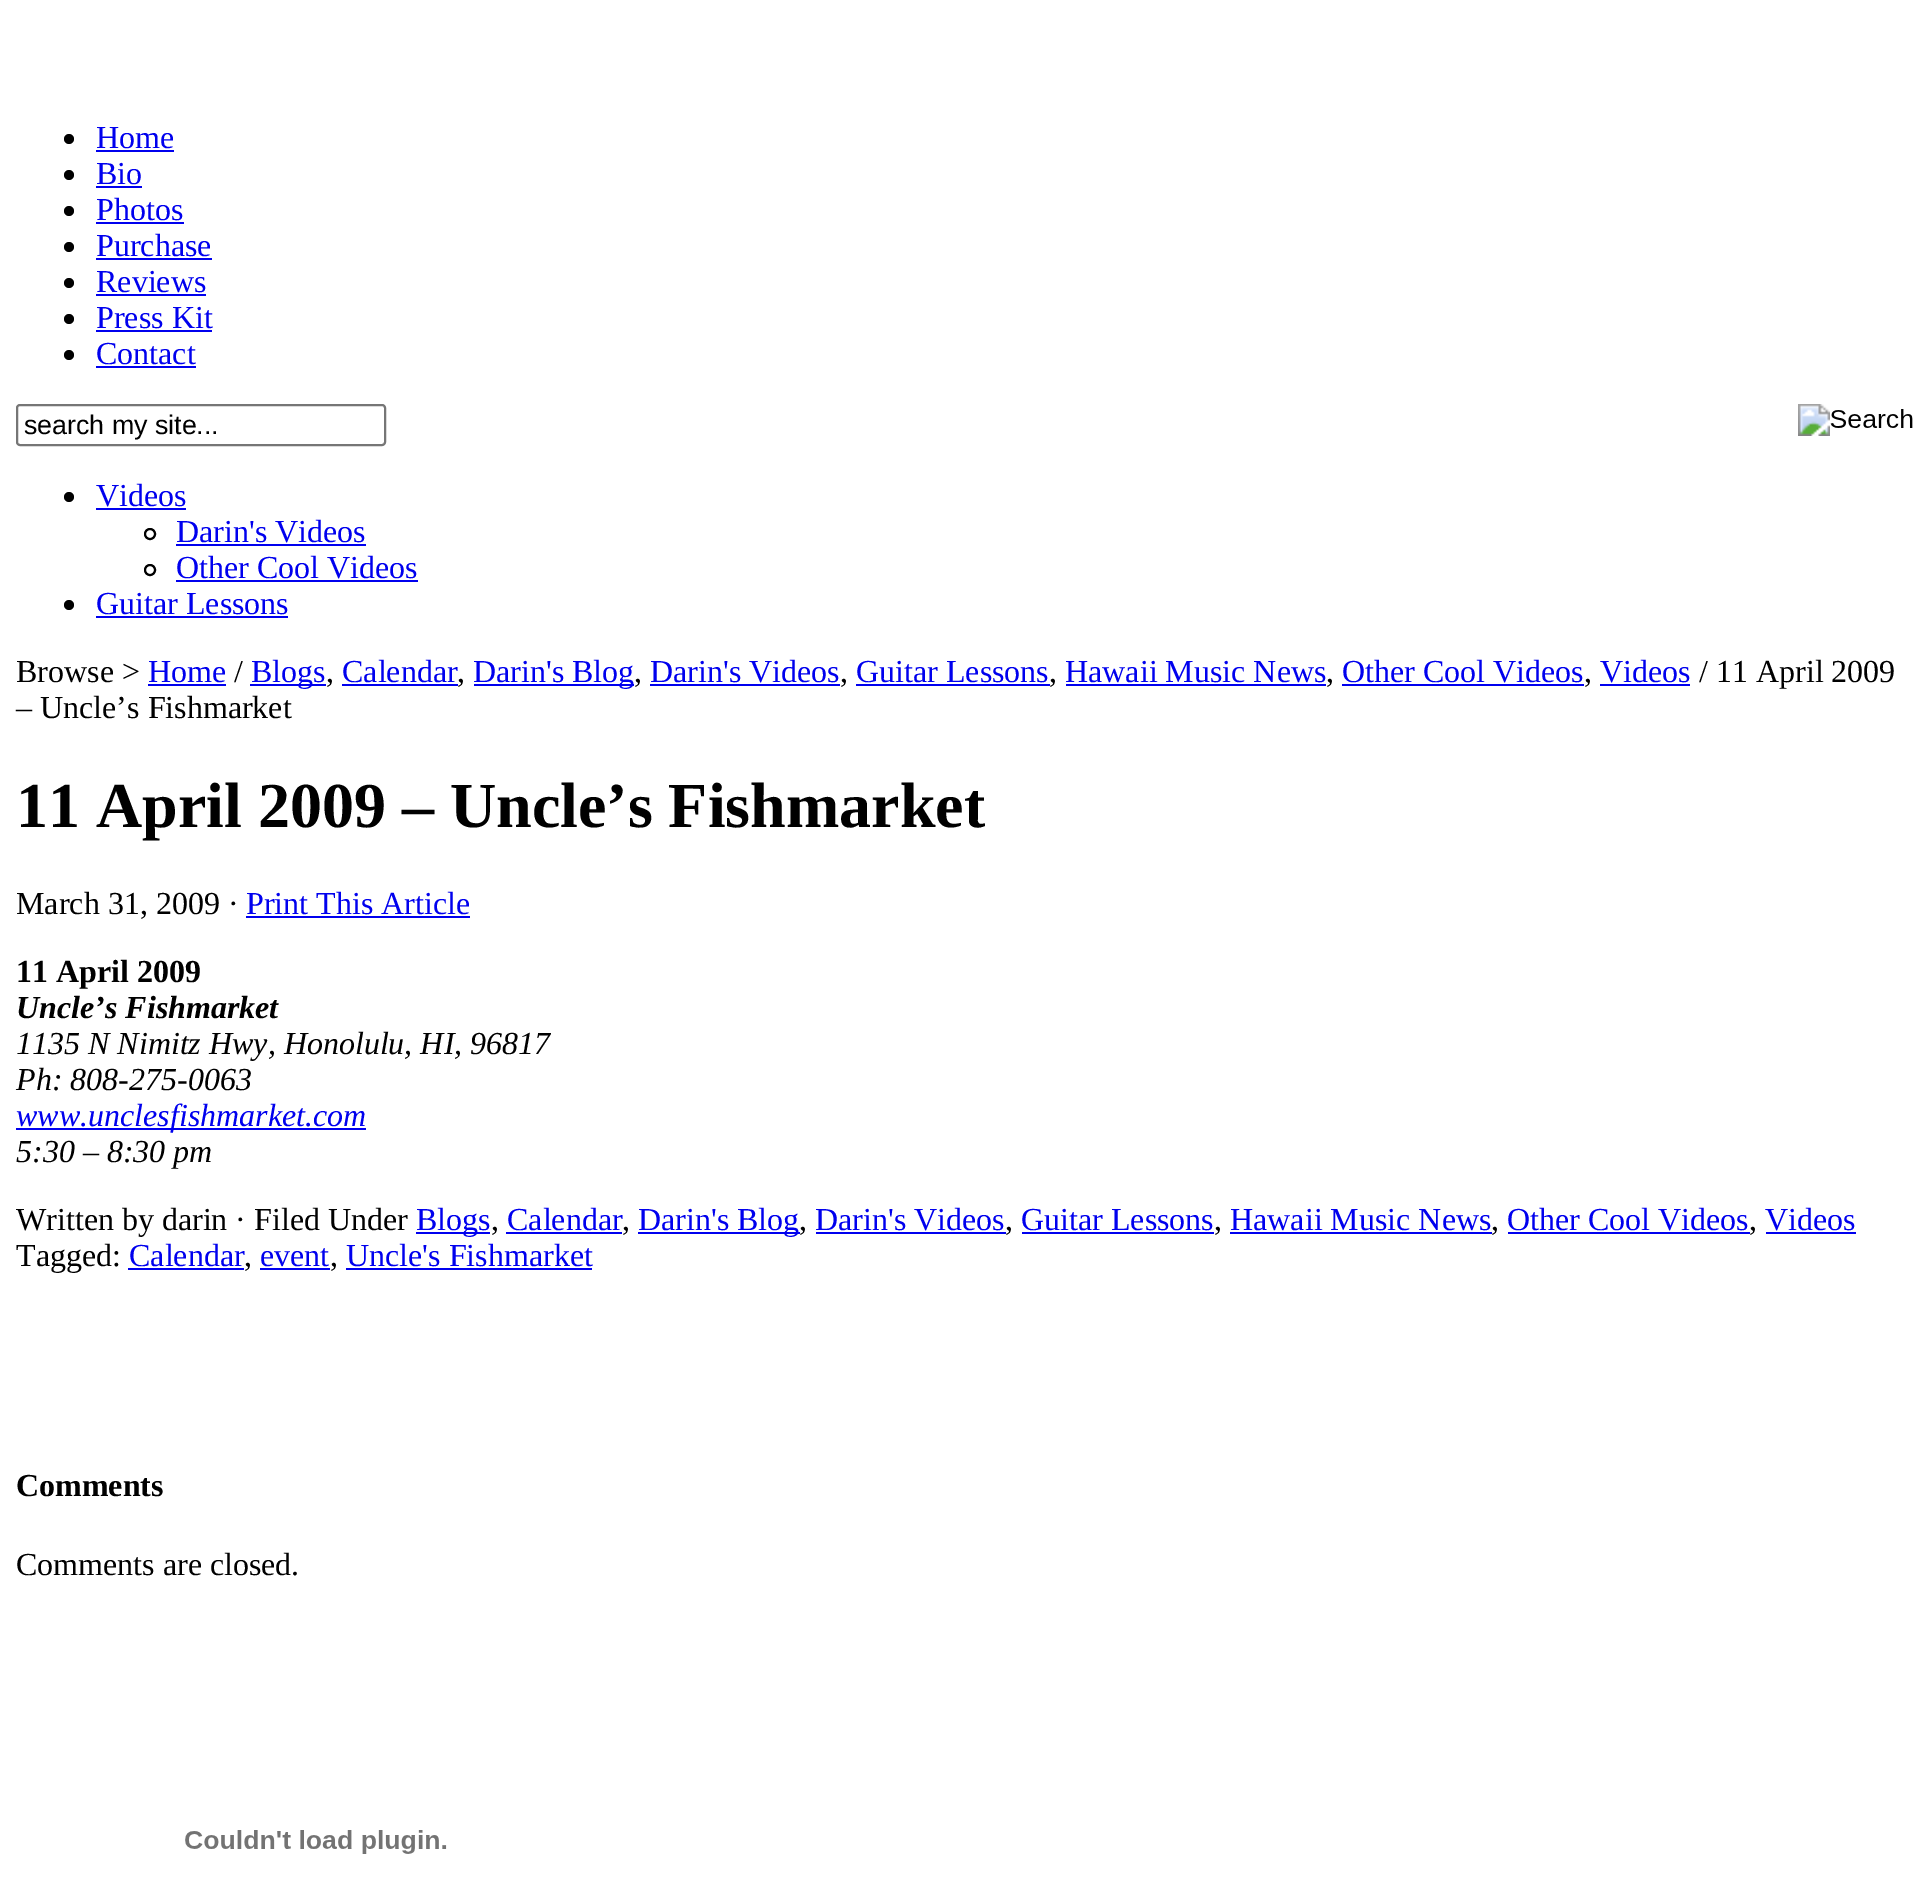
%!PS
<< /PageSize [1930 1877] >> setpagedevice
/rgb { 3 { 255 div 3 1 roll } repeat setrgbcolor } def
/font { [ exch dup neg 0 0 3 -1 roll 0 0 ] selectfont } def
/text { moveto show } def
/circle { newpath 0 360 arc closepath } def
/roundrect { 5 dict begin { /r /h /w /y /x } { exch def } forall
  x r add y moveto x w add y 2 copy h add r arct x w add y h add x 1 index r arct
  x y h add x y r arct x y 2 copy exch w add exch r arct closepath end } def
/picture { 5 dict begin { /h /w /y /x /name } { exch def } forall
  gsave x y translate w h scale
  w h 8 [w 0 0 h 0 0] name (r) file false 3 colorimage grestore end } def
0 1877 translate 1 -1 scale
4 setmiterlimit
255 255 255 rgb
0 0 1930 1877 rectfill
0 0 0 rgb
69 139 5 circle fill
0 0 238 rgb
96 150 78 2 rectfill
0 0 0 rgb
69 175 5 circle fill
0 0 238 rgb
96 186 46 2 rectfill
0 0 0 rgb
69 211 5 circle fill
0 0 238 rgb
96 222 88 2 rectfill
0 0 0 rgb
69 247 5 circle fill
0 0 238 rgb
96 258 116 2 rectfill
0 0 0 rgb
69 283 5 circle fill
0 0 238 rgb
96 294 110 2 rectfill
0 0 0 rgb
69 319 5 circle fill
0 0 238 rgb
96 330 116 2 rectfill
0 0 0 rgb
69 355 5 circle fill
0 0 238 rgb
96 366 100 2 rectfill
118 118 118 rgb
2 setlinewidth
17 405 368 40 3 roundrect stroke
(img_01.rgb) 1798 404 115 32 picture
0 0 0 rgb
69 497 5 circle fill
0 0 238 rgb
96 508 90 2 rectfill
0 0 0 rgb
150 534 5 circle stroke
0 0 238 rgb
176 544 190 2 rectfill
0 0 0 rgb
150 570 5 circle stroke
0 0 238 rgb
176 580 242 2 rectfill
0 0 0 rgb
69 605 5 circle fill
0 0 238 rgb
96 616 192 2 rectfill
148 684 78 2 rectfill
250 684 76 2 rectfill
342 684 116 2 rectfill
474 684 160 2 rectfill
650 684 190 2 rectfill
856 684 194 2 rectfill
1066 684 260 2 rectfill
1342 684 242 2 rectfill
1600 684 90 2 rectfill
246 916 224 2 rectfill
16 1128 350 2 rectfill
416 1232 74 2 rectfill
506 1232 116 2 rectfill
638 1232 162 2 rectfill
816 1232 190 2 rectfill
1022 1232 192 2 rectfill
1230 1232 262 2 rectfill
1508 1232 242 2 rectfill
1766 1232 90 2 rectfill
128 1268 116 2 rectfill
260 1268 70 2 rectfill
346 1268 246 2 rectfill
(img_02.rgb) 185 1830 262 24 picture
/LiberationSerif-Regular 32 font
(Home) 96 148 text
(Bio) 96 184 text
(Photos) 96 220 text
(Purchase) 96 256 text
(Reviews) 96 292 text
(Press Kit) 96 328 text
(Contact) 96 364 text
/LiberationSans-Regular 26.75 font
0 0 0 rgb
(search my site...) 24 434 text
/LiberationSerif-Regular 32 font
0 0 238 rgb
(Videos) 96 506 text
(Darin's Videos) 176 542 text
(Other Cool Videos) 176 578 text
(Guitar Lessons) 96 614 text
0 0 0 rgb
(Browse >) 16 682 text
0 0 238 rgb
(Home) 148 682 text
0 0 0 rgb
(/) 234 682 text
0 0 238 rgb
(Blogs) 251 682 text
0 0 0 rgb
(,) 326 682 text
0 0 238 rgb
(Calendar) 342 682 text
0 0 0 rgb
(,) 457 682 text
0 0 238 rgb
(Darin's Blog) 473 682 text
0 0 0 rgb
(,) 634 682 text
0 0 238 rgb
(Darin's Videos) 650 682 text
0 0 0 rgb
(,) 840 682 text
0 0 238 rgb
(Guitar Lessons) 856 682 text
0 0 0 rgb
(,) 1049 682 text
0 0 238 rgb
(Hawaii Music News) 1065 682 text
0 0 0 rgb
(,) 1326 682 text
0 0 238 rgb
(Other Cool Videos) 1342 682 text
0 0 0 rgb
(,) 1584 682 text
0 0 238 rgb
(Videos) 1600 682 text
0 0 0 rgb
(/ 11 April 2009) 1699 682 text
(– Uncle’s Fishmarket) 16 718 text
/LiberationSerif-Bold 64 font
(11 April 2009 – Uncle’s Fishmarket) 16 827 text
/LiberationSerif-Regular 32 font
(March 31, 2009 ·) 16 914 text
0 0 238 rgb
(Print This Article) 246 914 text
/LiberationSerif-Bold 32 font
0 0 0 rgb
(11 April 2009) 16 982 text
/LiberationSerif-BoldItalic 32 font
(Uncle’s Fishmarket) 16 1018 text
/LiberationSerif-Italic 32 font
(1135 N Nimitz Hwy, Honolulu, HI, 96817) 16 1054 text
(Ph: 808-275-0063) 16 1090 text
0 0 238 rgb
(www.unclesfishmarket.com) 16 1126 text
0 0 0 rgb
(5:30 – 8:30 pm) 16 1162 text
/LiberationSerif-Regular 32 font
(Written by darin · Filed Under) 16 1230 text
0 0 238 rgb
(Blogs) 416 1230 text
0 0 0 rgb
(,) 491 1230 text
0 0 238 rgb
(Calendar) 507 1230 text
0 0 0 rgb
(,) 622 1230 text
0 0 238 rgb
(Darin's Blog) 638 1230 text
0 0 0 rgb
(,) 799 1230 text
0 0 238 rgb
(Darin's Videos) 815 1230 text
0 0 0 rgb
(,) 1005 1230 text
0 0 238 rgb
(Guitar Lessons) 1021 1230 text
0 0 0 rgb
(,) 1214 1230 text
0 0 238 rgb
(Hawaii Music News) 1230 1230 text
0 0 0 rgb
(,) 1491 1230 text
0 0 238 rgb
(Other Cool Videos) 1507 1230 text
0 0 0 rgb
(,) 1749 1230 text
0 0 238 rgb
(Videos) 1765 1230 text
0 0 0 rgb
(Tagged:) 16 1266 text
0 0 238 rgb
(Calendar) 129 1266 text
0 0 0 rgb
(,) 244 1266 text
0 0 238 rgb
(event) 260 1266 text
0 0 0 rgb
(,) 330 1266 text
0 0 238 rgb
(Uncle's Fishmarket) 346 1266 text
/LiberationSerif-Bold 32 font
0 0 0 rgb
(Comments) 16 1496 text
/LiberationSerif-Regular 32 font
(Comments are closed.) 16 1575 text
showpage
